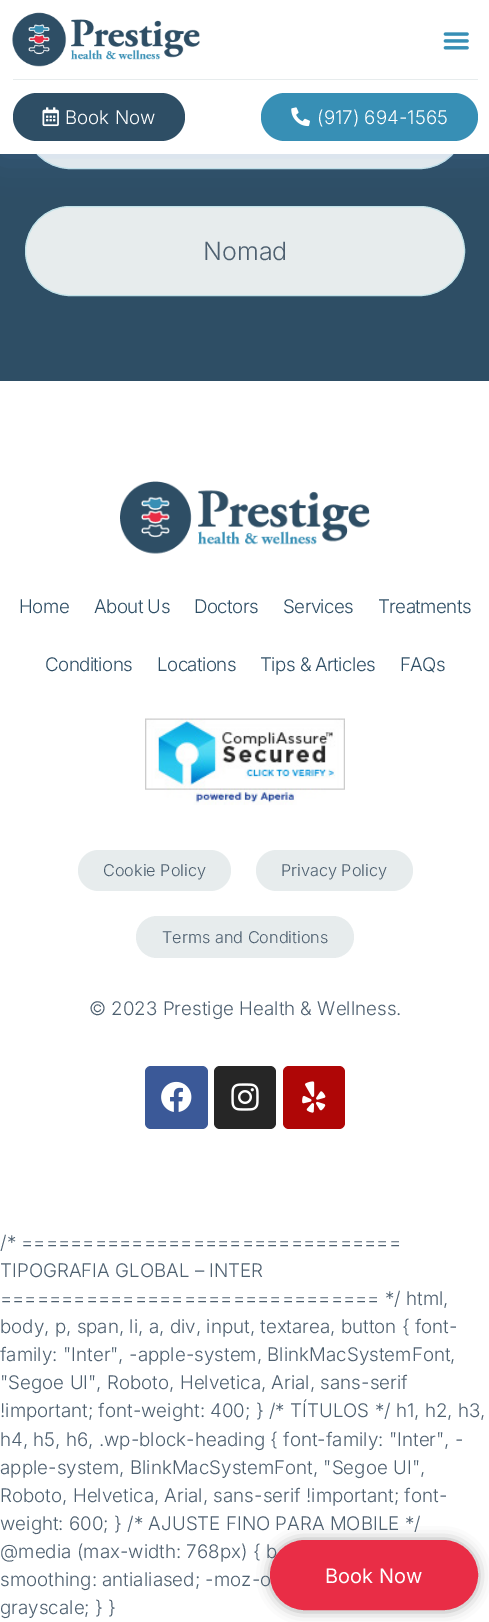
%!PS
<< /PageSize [489 1622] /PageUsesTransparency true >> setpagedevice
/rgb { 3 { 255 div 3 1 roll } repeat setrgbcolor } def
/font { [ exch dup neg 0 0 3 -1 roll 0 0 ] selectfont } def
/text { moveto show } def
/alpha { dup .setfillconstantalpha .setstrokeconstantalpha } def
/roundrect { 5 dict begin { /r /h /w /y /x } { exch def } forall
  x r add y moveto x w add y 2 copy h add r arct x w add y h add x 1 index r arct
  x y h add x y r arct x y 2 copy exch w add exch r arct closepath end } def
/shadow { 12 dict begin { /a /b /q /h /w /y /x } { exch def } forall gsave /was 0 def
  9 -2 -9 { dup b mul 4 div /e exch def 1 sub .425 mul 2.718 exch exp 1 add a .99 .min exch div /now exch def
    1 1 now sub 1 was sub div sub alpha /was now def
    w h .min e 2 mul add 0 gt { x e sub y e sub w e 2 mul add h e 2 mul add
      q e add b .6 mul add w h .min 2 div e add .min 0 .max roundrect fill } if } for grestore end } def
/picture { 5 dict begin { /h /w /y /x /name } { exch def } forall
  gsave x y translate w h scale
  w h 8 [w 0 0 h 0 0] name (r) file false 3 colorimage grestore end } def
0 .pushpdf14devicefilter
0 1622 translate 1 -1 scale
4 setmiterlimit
255 255 255 rgb
0 0 489 1622 rectfill
46 78 101 rgb
0 154 489 227 rectfill
231 236 237 rgb
25.5 79.5 439 89 44.5 roundrect gsave fill grestore
194 226 232 rgb
stroke
231 236 237 rgb
25.5 206.5 439 89 44.5 roundrect gsave fill grestore
194 226 232 rgb
stroke
103 151 255 rgb
0 0 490 154 0 19 0.17 shadow
255 255 255 rgb
0 0 489 154 rectfill
(img_01.rgb) 12 12 188 55 picture
(img_02.rgb) 443 32 26 18 picture
231 236 237 rgb
13 79 465 1 rectfill
46 78 101 rgb
13 93 172 48 24 roundrect fill
(img_03.rgb) 42 107 17 20 picture
55 143 181 rgb
261 93 217 48 24 roundrect fill
(img_04.rgb) 291 107 19 20 picture
(img_05.rgb) 120 481 250 73 picture
(img_06.rgb) 145 718 200 87 picture
231 236 237 rgb
78 850 153 41 20.5 roundrect fill
256 850 157 41 20.5 roundrect fill
136 916 218 42 21 roundrect fill
59 89 152 rgb
145 1066 63 63 6 roundrect fill
(img_07.rgb) 161 1081 31 31 picture
38 38 38 rgb
214 1066 62 63 6 roundrect fill
(img_08.rgb) 231 1083 28 28 picture
175 6 6 rgb
283 1066 62 63 6 roundrect fill
(img_09.rgb) 302 1081 24 32 picture
0 0 0 rgb
273 1543 202 65 32.5 7.5 0.5 shadow
/Inter-Light 18.75 font
255 255 255 rgb
(Book Now) 65 124 text
(\(917\) 694-1565) 317 124 text
/Inter-Light 25 font
78 96 112 rgb
(Nomad) 203 260 text
/Inter-Light 18.75 font
46 78 101 rgb
19 613 moveto -0.6 0 (Home) ashow
94 613 moveto -0.6 0 (About Us) ashow
194 613 moveto -0.6 0 (Doctors) ashow
283 613 moveto -0.6 0 (Services) ashow
378 613 moveto -0.6 0 (Treatments) ashow
45 671 moveto -0.6 0 (Conditions) ashow
157 671 moveto -0.6 0 (Locations) ashow
260 671 moveto -0.6 0 (Tips & Articles) ashow
400 671 moveto -0.6 0 (FAQs) ashow
/Inter-Light 16.25 font
78 96 112 rgb
(Cookie Policy) 103 876 text
(Privacy Policy) 281 876 text
(Terms and Conditions) 162 943 text
/Inter-Light 18.75 font
(© 2023 Prestige Health & Wellness.) 89 1015 text
(/* ===============================) 0 1249 text
(TIPOGRAFIA GLOBAL – INTER) 0 1277 text
(=============================== */ html,) 0 1305 text
(body, p, span, li, a, div, input, textarea, button { font-) 0 1333 text
(family: "Inter", -apple-system, BlinkMacSystemFont,) 0 1361 text
("Segoe UI", Roboto, Helvetica, Arial, sans-serif) 0 1389 text
(!important; font-weight: 400; } /* TÍTULOS */ h1, h2, h3,) 0 1417 text
(h4, h5, h6, .wp-block-heading { font-family: "Inter", -) 0 1446 text
(apple-system, BlinkMacSystemFont, "Segoe UI",) 0 1474 text
(Roboto, Helvetica, Arial, sans-serif !important; font-) 0 1502 text
(weight: 600; } /* AJUSTE FINO PARA MOBILE */) 0 1530 text
(@media \(max-width: 768px\) { b) 0 1558 text
(smoothing: antialiased; -moz-o) 0 1586 text
233 45 70 rgb
271.5 1541.5 205 67 33.5 roundrect gsave fill grestore
3 setlinewidth
stroke
/Inter-Regular 20 font
255 255 255 rgb
(Book Now) 325 1583 text
/Inter-Light 18.75 font
78 96 112 rgb
(grayscale; } }) 0 1614 text
.poppdf14devicefilter showpage
